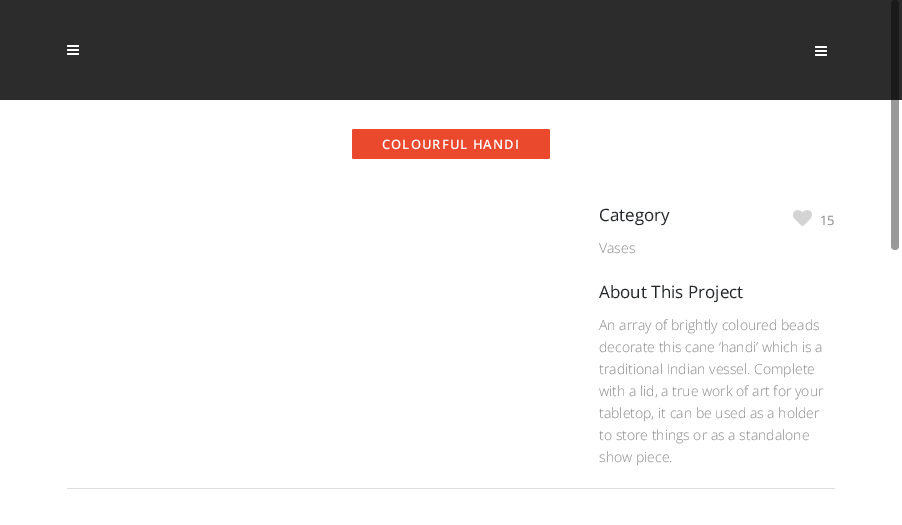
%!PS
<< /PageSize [902 525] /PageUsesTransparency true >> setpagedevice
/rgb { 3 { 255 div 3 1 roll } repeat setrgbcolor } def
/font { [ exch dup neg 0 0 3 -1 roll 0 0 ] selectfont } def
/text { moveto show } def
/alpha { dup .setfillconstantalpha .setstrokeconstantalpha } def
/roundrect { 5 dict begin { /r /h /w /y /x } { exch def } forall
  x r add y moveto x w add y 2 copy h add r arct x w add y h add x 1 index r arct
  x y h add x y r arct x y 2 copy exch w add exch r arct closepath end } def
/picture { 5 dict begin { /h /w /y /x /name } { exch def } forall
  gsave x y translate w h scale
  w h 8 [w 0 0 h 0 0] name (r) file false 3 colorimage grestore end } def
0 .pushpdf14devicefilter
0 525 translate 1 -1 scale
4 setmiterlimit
255 255 255 rgb
0 0 902 525 rectfill
44 44 44 rgb
0 0 902 100 rectfill
(img_01.rgb) 67 45 12 10 picture
(img_01.rgb) 815 46 12 10 picture
235 73 46 rgb
352 129 198 30 2 roundrect fill
(img_02.rgb) 793 210 19 17 picture
221 221 221 rgb
67 488 768 1 rectfill
0.4 alpha
0 0 0 rgb
891 0 8 250 4 roundrect fill
/OpenSans-SemiBold 13 font
1 alpha
255 255 255 rgb
382 149 moveto 1 0 (COLOURFUL HANDI) ashow
/OpenSans-Regular 17 font
36 39 41 rgb
(Category) 599 221 text
/OpenSans-Light 14 font
136 136 136 rgb
(Vases) 599 253 text
/OpenSans-Regular 13 font
(15) 820 225 text
/OpenSans-Regular 17 font
36 39 41 rgb
(About This Project) 599 298 text
/OpenSans-Light 14 font
136 136 136 rgb
(An array of brightly coloured beads) 599 330 text
(decorate this cane ‘handi’ which is a) 599 352 text
(traditional Indian vessel. Complete) 599 374 text
(with a lid, a true work of art for your) 599 396 text
(tabletop, it can be used as a holder) 599 418 text
(to store things or as a standalone) 599 440 text
(show piece.) 599 462 text
.poppdf14devicefilter showpage
